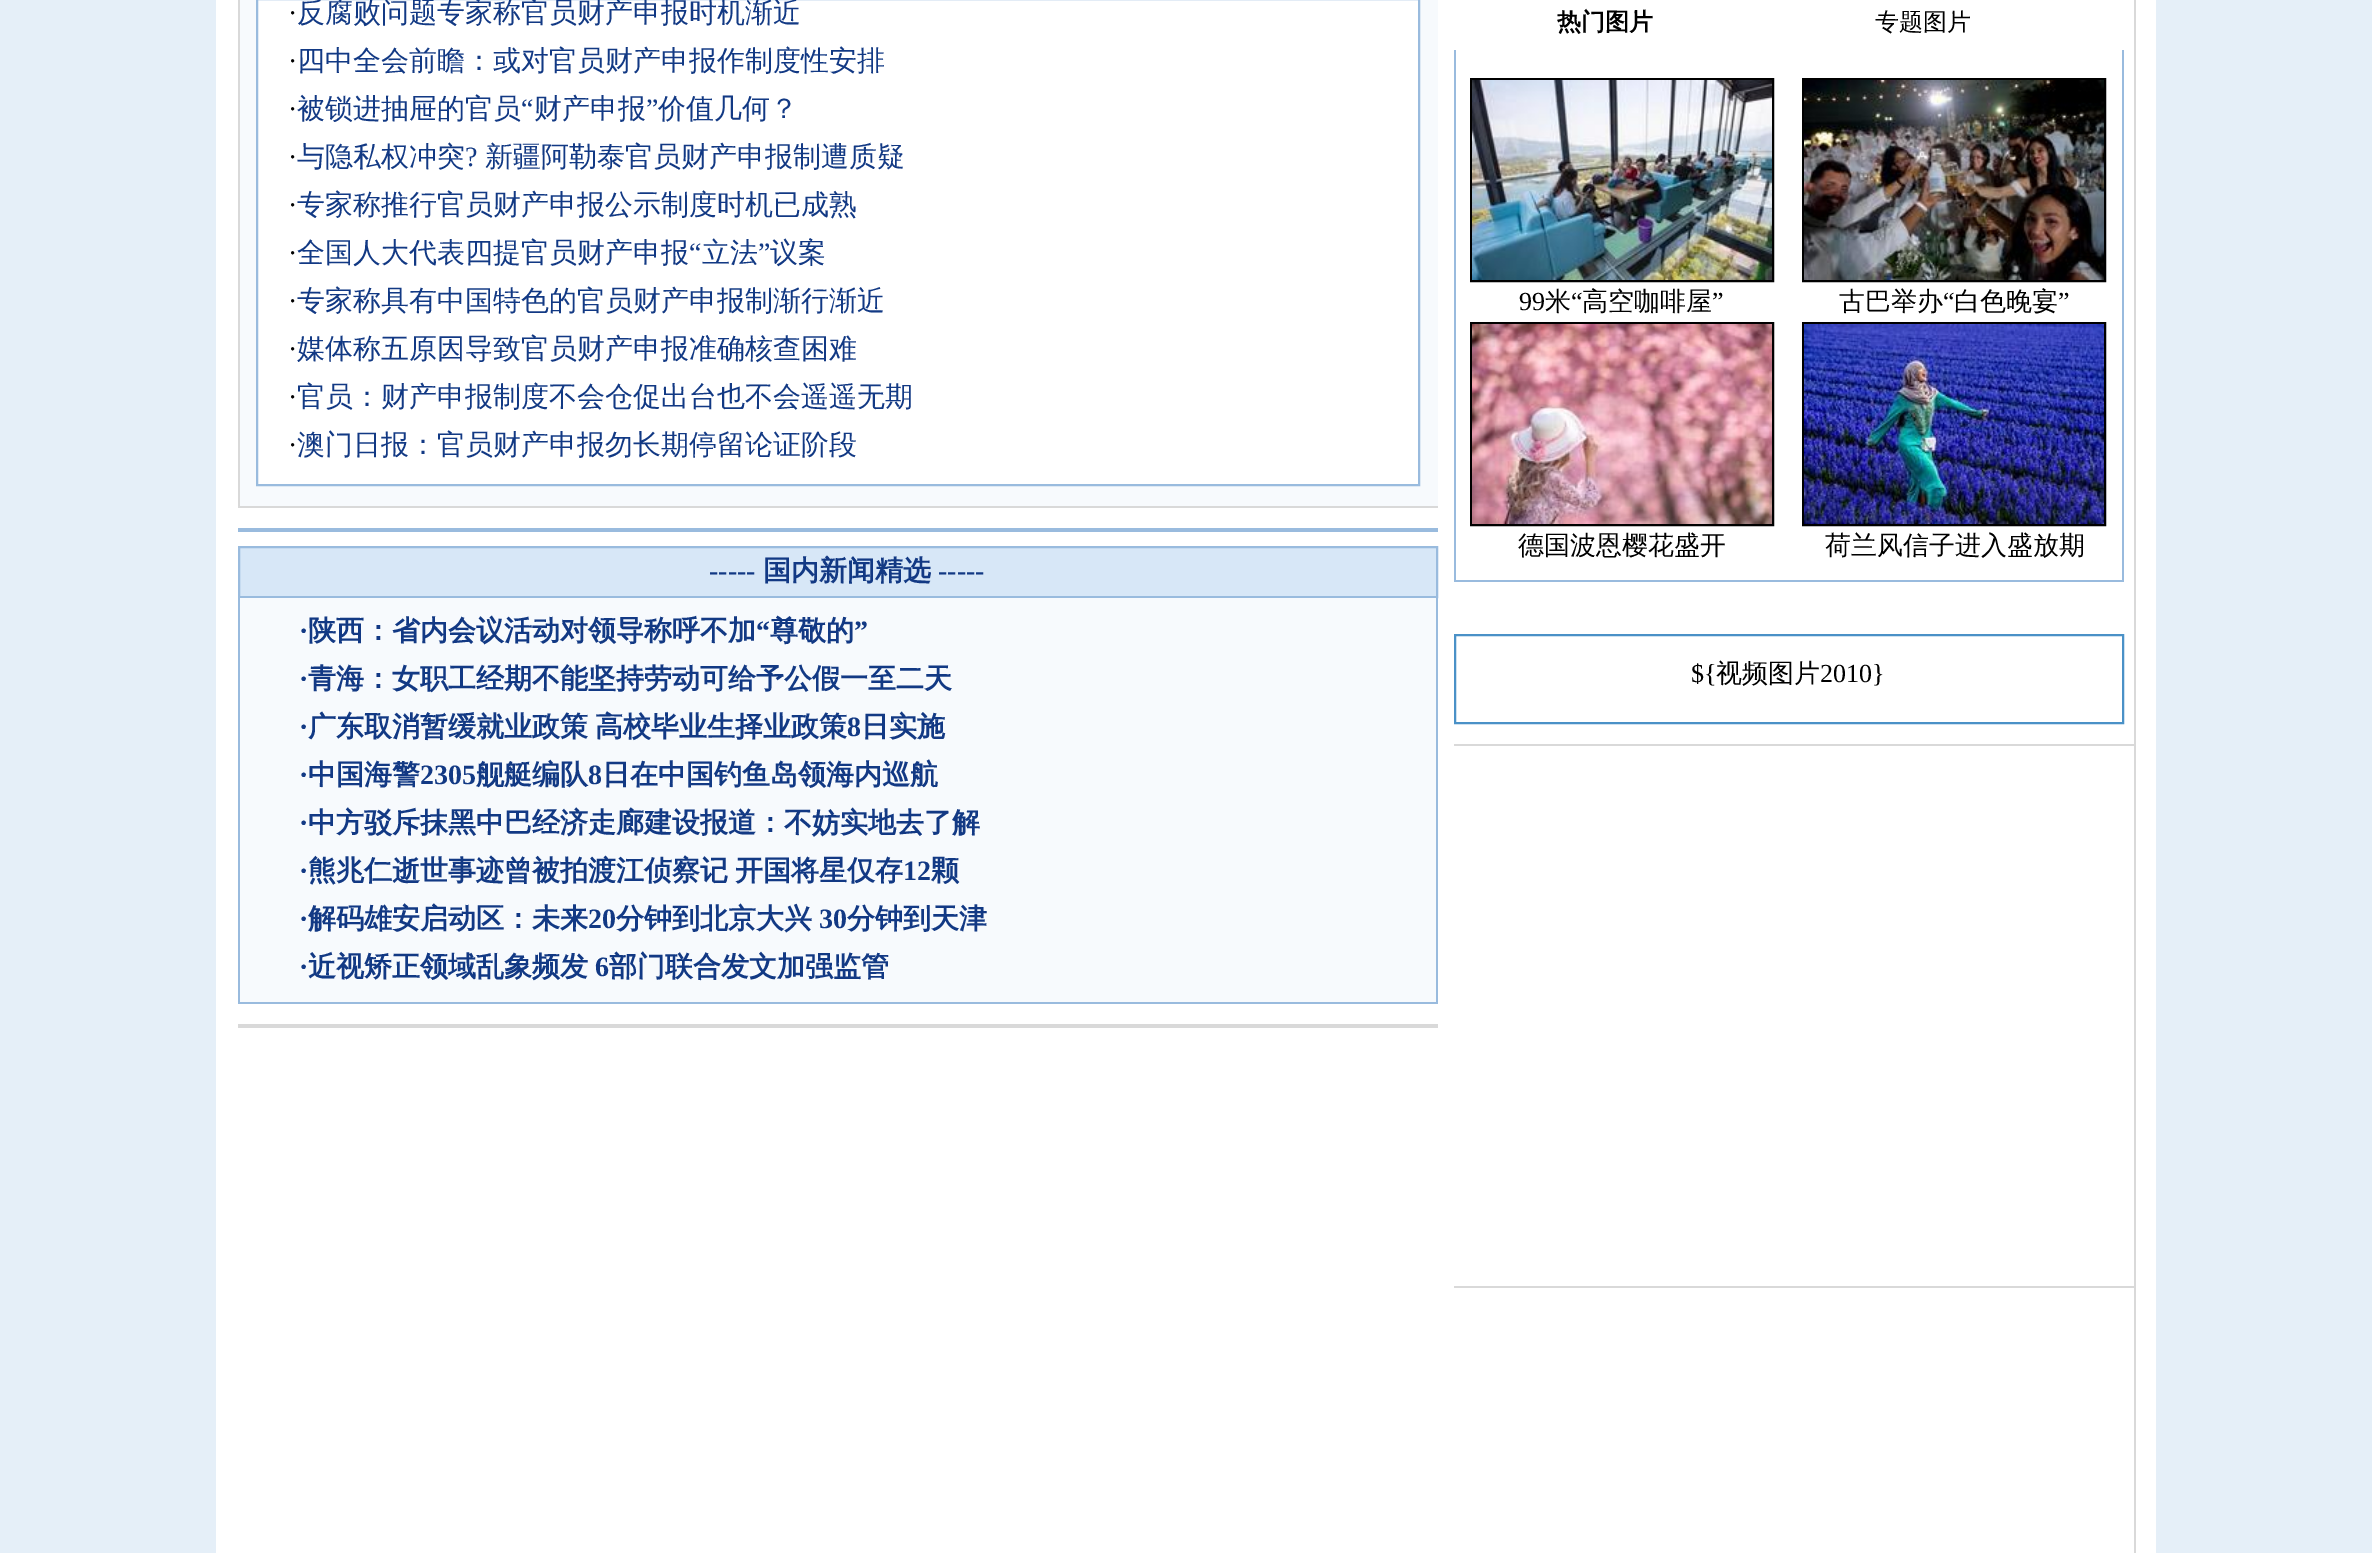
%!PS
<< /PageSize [2372 1553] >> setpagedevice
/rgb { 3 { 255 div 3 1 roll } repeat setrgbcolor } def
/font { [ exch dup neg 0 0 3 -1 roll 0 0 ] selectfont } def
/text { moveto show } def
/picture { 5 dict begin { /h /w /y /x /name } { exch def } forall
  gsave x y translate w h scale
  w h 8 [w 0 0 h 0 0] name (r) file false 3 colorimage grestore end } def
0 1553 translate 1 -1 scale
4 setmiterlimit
229 239 248 rgb
0 0 2372 1553 rectfill
255 255 255 rgb
216 0 1940 1553 rectfill
217 217 217 rgb
2134 0 2 1553 rectfill
247 250 253 rgb
240 0 1198 506 rectfill
217 217 217 rgb
238 506 1200 2 rectfill
238 0 2 508 rectfill
255 255 255 rgb
257 -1 moveto 1162 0 rlineto 0 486 rlineto -1162 0 rlineto closepath gsave fill grestore
153 187 222 rgb
2 setlinewidth
stroke
238 528 1200 4 rectfill
215 231 247 rgb
239 547 moveto 1198 0 rlineto 0 50 rlineto -1198 0 rlineto closepath gsave fill grestore
153 187 222 rgb
stroke
247 250 253 rgb
240 598 1196 404 rectfill
153 187 222 rgb
1436 598 2 406 rectfill
238 1002 1200 2 rectfill
238 598 2 406 rectfill
217 217 217 rgb
238 1024 1200 4 rectfill
153 187 222 rgb
2122 50 2 532 rectfill
1454 580 670 2 rectfill
1454 50 2 532 rectfill
0 0 0 rgb
1471 79 302 202 rectstroke
(img_01.rgb) 1472 80 300 200 picture
1803 79 302 202 rectstroke
(img_02.rgb) 1804 80 300 200 picture
1471 323 302 202 rectstroke
(img_03.rgb) 1472 324 300 200 picture
1803 323 302 202 rectstroke
(img_04.rgb) 1804 324 300 200 picture
74 145 199 rgb
1455 635 668 88 rectstroke
217 217 217 rgb
1454 744 680 2 rectfill
1454 1286 680 2 rectfill
/LiberationSerif-Regular 28 font
0 0 0 rgb
(·) 288 22 text
/WenQuanYiZenHei-Medium 28 font
18 57 132 rgb
(反腐败问题专家称官员财产申报时机渐近) 297 22 text
/LiberationSerif-Regular 28 font
0 0 0 rgb
(·) 288 70 text
/WenQuanYiZenHei-Medium 28 font
18 57 132 rgb
(四中全会前瞻：或对官员财产申报作制度性安排) 297 70 text
(被锁进抽屉的官员) 297 118 text
/LiberationSerif-Regular 28 font
(“) 521 118 text
/WenQuanYiZenHei-Medium 28 font
(财产申报) 534 118 text
/LiberationSerif-Regular 28 font
(”) 646 118 text
/WenQuanYiZenHei-Medium 28 font
(价值几何？) 658 118 text
/LiberationSerif-Regular 28 font
0 0 0 rgb
(·) 288 118 text
(·) 288 166 text
/WenQuanYiZenHei-Medium 28 font
18 57 132 rgb
(与隐私权冲突) 297 166 text
/LiberationSerif-Regular 28 font
(?) 465 166 text
/WenQuanYiZenHei-Medium 28 font
(新疆阿勒泰官员财产申报制遭质疑) 485 166 text
/LiberationSerif-Regular 28 font
0 0 0 rgb
(·) 288 214 text
/WenQuanYiZenHei-Medium 28 font
18 57 132 rgb
(专家称推行官员财产申报公示制度时机已成熟) 297 214 text
(全国人大代表四提官员财产申报) 297 262 text
/LiberationSerif-Regular 28 font
(“) 689 262 text
/WenQuanYiZenHei-Medium 28 font
(立法) 702 262 text
/LiberationSerif-Regular 28 font
(”) 758 262 text
/WenQuanYiZenHei-Medium 28 font
(议案) 770 262 text
/LiberationSerif-Regular 28 font
0 0 0 rgb
(·) 288 262 text
(·) 288 310 text
/WenQuanYiZenHei-Medium 28 font
18 57 132 rgb
(专家称具有中国特色的官员财产申报制渐行渐近) 297 310 text
/LiberationSerif-Regular 28 font
0 0 0 rgb
(·) 288 358 text
/WenQuanYiZenHei-Medium 28 font
18 57 132 rgb
(媒体称五原因导致官员财产申报准确核查困难) 297 358 text
/LiberationSerif-Regular 28 font
0 0 0 rgb
(·) 288 406 text
/WenQuanYiZenHei-Medium 28 font
18 57 132 rgb
(官员：财产申报制度不会仓促出台也不会遥遥无期) 297 406 text
/LiberationSerif-Regular 28 font
0 0 0 rgb
(·) 288 454 text
/WenQuanYiZenHei-Medium 28 font
18 57 132 rgb
(澳门日报：官员财产申报勿长期停留论证阶段) 297 454 text
/LiberationSerif-Bold 28 font
(-----) 709 580 text
/WenQuanYiZenHei-Bold 28 font
(国内新闻精选) 763 580 text
/LiberationSerif-Bold 28 font
(-----) 938 580 text
/WenQuanYiZenHei-Bold 28 font
(陕西：省内会议活动对领导称呼不加) 308 640 text
/LiberationSerif-Bold 28 font
(“) 756 640 text
/WenQuanYiZenHei-Bold 28 font
(尊敬的) 770 640 text
/LiberationSerif-Bold 28 font
(”) 854 640 text
(·) 299 640 text
(·) 299 688 text
/WenQuanYiZenHei-Bold 28 font
(青海：女职工经期不能坚持劳动可给予公假一至二天) 308 688 text
/LiberationSerif-Bold 28 font
(·) 299 736 text
/WenQuanYiZenHei-Bold 28 font
308 736 moveto -1 0 32 (广东取消暂缓就业政策 高校毕业生择业政策) widthshow
/LiberationSerif-Bold 28 font
(8) 847 736 text
/WenQuanYiZenHei-Bold 28 font
(日实施) 861 736 text
/LiberationSerif-Bold 28 font
(·) 299 784 text
/WenQuanYiZenHei-Bold 28 font
(中国海警) 308 784 text
/LiberationSerif-Bold 28 font
(2305) 420 784 text
/WenQuanYiZenHei-Bold 28 font
(舰艇编队) 476 784 text
/LiberationSerif-Bold 28 font
(8) 588 784 text
/WenQuanYiZenHei-Bold 28 font
(日在中国钓鱼岛领海内巡航) 602 784 text
/LiberationSerif-Bold 28 font
(·) 299 832 text
/WenQuanYiZenHei-Bold 28 font
(中方驳斥抹黑中巴经济走廊建设报道：不妨实地去了解) 308 832 text
/LiberationSerif-Bold 28 font
(·) 299 880 text
/WenQuanYiZenHei-Bold 28 font
(熊兆仁逝世事迹曾被拍渡江侦察记) 308 880 text
(开国将星仅存) 735 880 text
/LiberationSerif-Bold 28 font
(12) 903 880 text
/WenQuanYiZenHei-Bold 28 font
(颗) 931 880 text
/LiberationSerif-Bold 28 font
(·) 299 928 text
/WenQuanYiZenHei-Bold 28 font
(解码雄安启动区：未来) 308 928 text
/LiberationSerif-Bold 28 font
(20) 588 928 text
/WenQuanYiZenHei-Bold 28 font
(分钟到北京大兴) 616 928 text
/LiberationSerif-Bold 28 font
(30) 819 928 text
/WenQuanYiZenHei-Bold 28 font
(分钟到天津) 847 928 text
/LiberationSerif-Bold 28 font
(·) 299 976 text
/WenQuanYiZenHei-Bold 28 font
(近视矫正领域乱象频发) 308 976 text
/LiberationSerif-Bold 28 font
(6) 595 976 text
/WenQuanYiZenHei-Bold 28 font
(部门联合发文加强监管) 609 976 text
/WenQuanYiZenHei-Bold 24 font
0 0 0 rgb
(热门图片) 1557 30 text
/WenQuanYiZenHei-Medium 24 font
(专题图片) 1875 30 text
/LiberationSerif-Regular 26 font
(99) 1519 310 text
/WenQuanYiZenHei-Medium 26 font
(米) 1545 310 text
/LiberationSerif-Regular 26 font
(“) 1571 310 text
/WenQuanYiZenHei-Medium 26 font
(高空咖啡屋) 1582 310 text
/LiberationSerif-Regular 26 font
(”) 1712 310 text
/WenQuanYiZenHei-Medium 26 font
(古巴举办) 1839 310 text
/LiberationSerif-Regular 26 font
(“) 1943 310 text
/WenQuanYiZenHei-Medium 26 font
(白色晚宴) 1954 310 text
/LiberationSerif-Regular 26 font
(”) 2058 310 text
/WenQuanYiZenHei-Medium 26 font
(德国波恩樱花盛开) 1518 554 text
(荷兰风信子进入盛放期) 1825 554 text
/LiberationSerif-Regular 26 font
(${) 1691 682 text
/WenQuanYiZenHei-Medium 26 font
(视频图片) 1716 682 text
/LiberationSerif-Regular 26 font
(2010}) 1820 682 text
showpage
